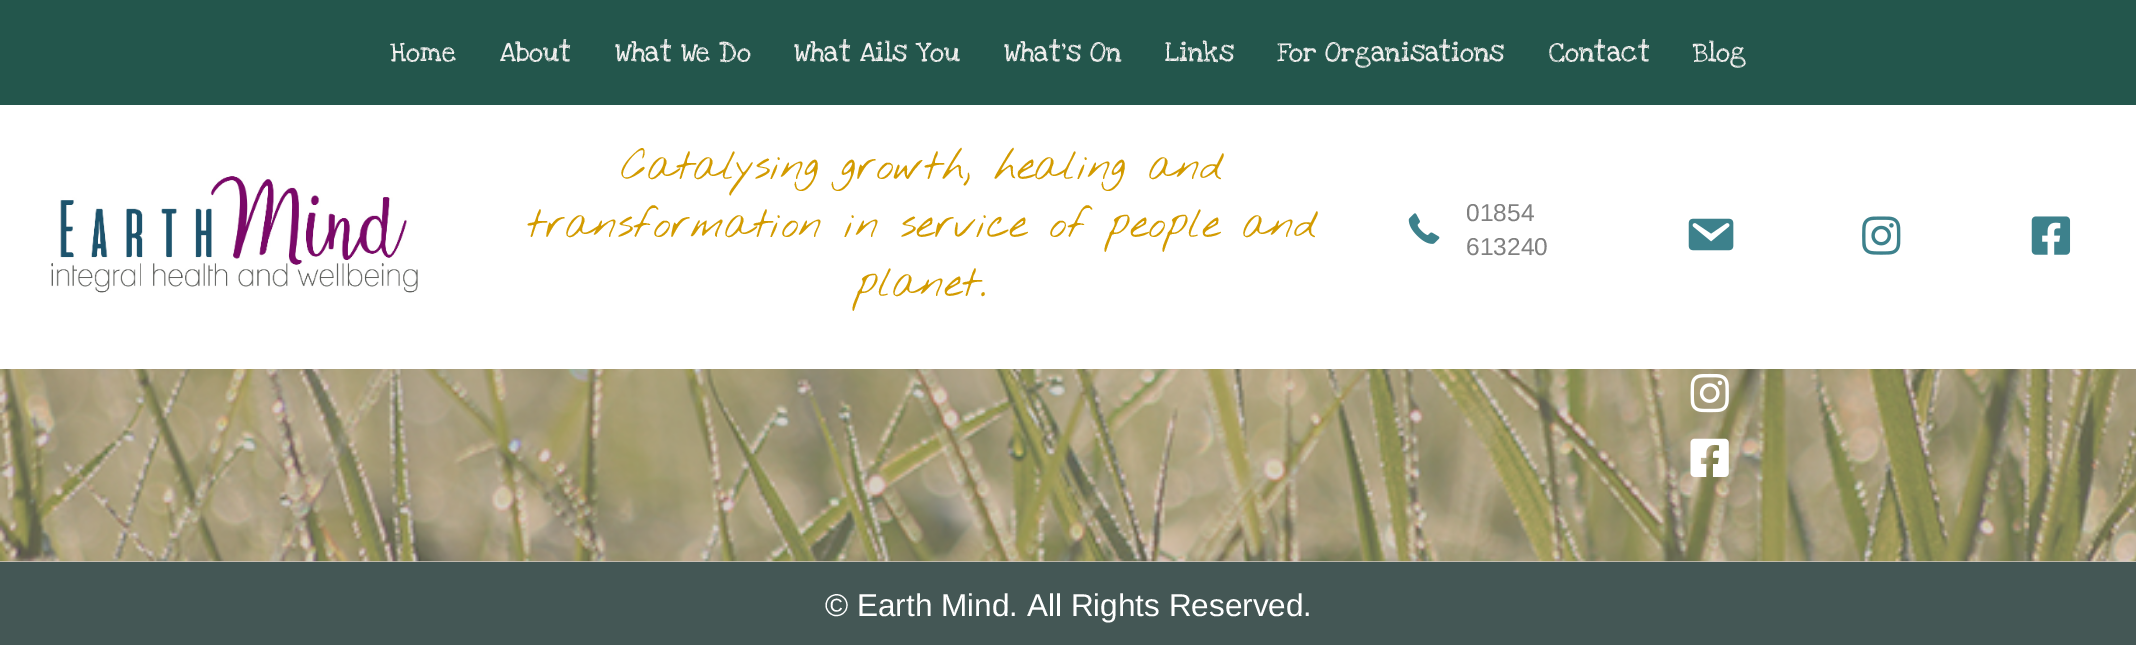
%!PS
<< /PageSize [2136 645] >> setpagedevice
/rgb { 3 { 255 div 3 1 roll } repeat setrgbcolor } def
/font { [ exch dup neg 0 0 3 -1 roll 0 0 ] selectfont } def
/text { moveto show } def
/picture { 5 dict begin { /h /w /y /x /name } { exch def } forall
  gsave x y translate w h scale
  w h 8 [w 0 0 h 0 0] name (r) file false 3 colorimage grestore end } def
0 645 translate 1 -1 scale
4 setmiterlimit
208 201 195 rgb
0 0 2136 645 rectfill
255 255 255 rgb
0 105 2136 264 rectfill
35 86 76 rgb
0 0 2136 105 rectfill
(img_01.rgb) 51 176 367 117 picture
(img_02.rgb) 1408 213 32 31 picture
(img_03.rgb) 1688 218 46 33 picture
(img_04.rgb) 1862 216 39 39 picture
(img_05.rgb) 2031 216 40 39 picture
(img_06.rgb) 0 369 2136 193 picture
(img_07.rgb) 1690 373 39 40 picture
(img_08.rgb) 1690 438 39 39 picture
68 87 85 rgb
0 562 2136 83 rectfill
/LoveYaLikeASister-Regular 28 font
242 240 239 rgb
(Home) 390 61 text
(About) 500 61 text
(What We Do) 615 61 text
(What Ails You) 794 61 text
(What’s On) 1004 61 text
(Links) 1165 61 text
(For Organisations) 1277 61 text
(Contact) 1549 61 text
(Blog) 1693 61 text
/NothingYouCouldDo-Thin 42 font
211 155 0 rgb
(Catalysing growth, healing and) 621 179 text
(transformation in service of people and) 527 237 text
(planet.) 856 296 text
/LiberationSans-Regular 24.5 font
128 128 128 rgb
(01854) 1466 221 text
(613240) 1466 255 text
/LiberationSans-Regular 31.5 font
255 255 255 rgb
(© Earth Mind. All Rights Reserved.) 825 616 text
showpage
